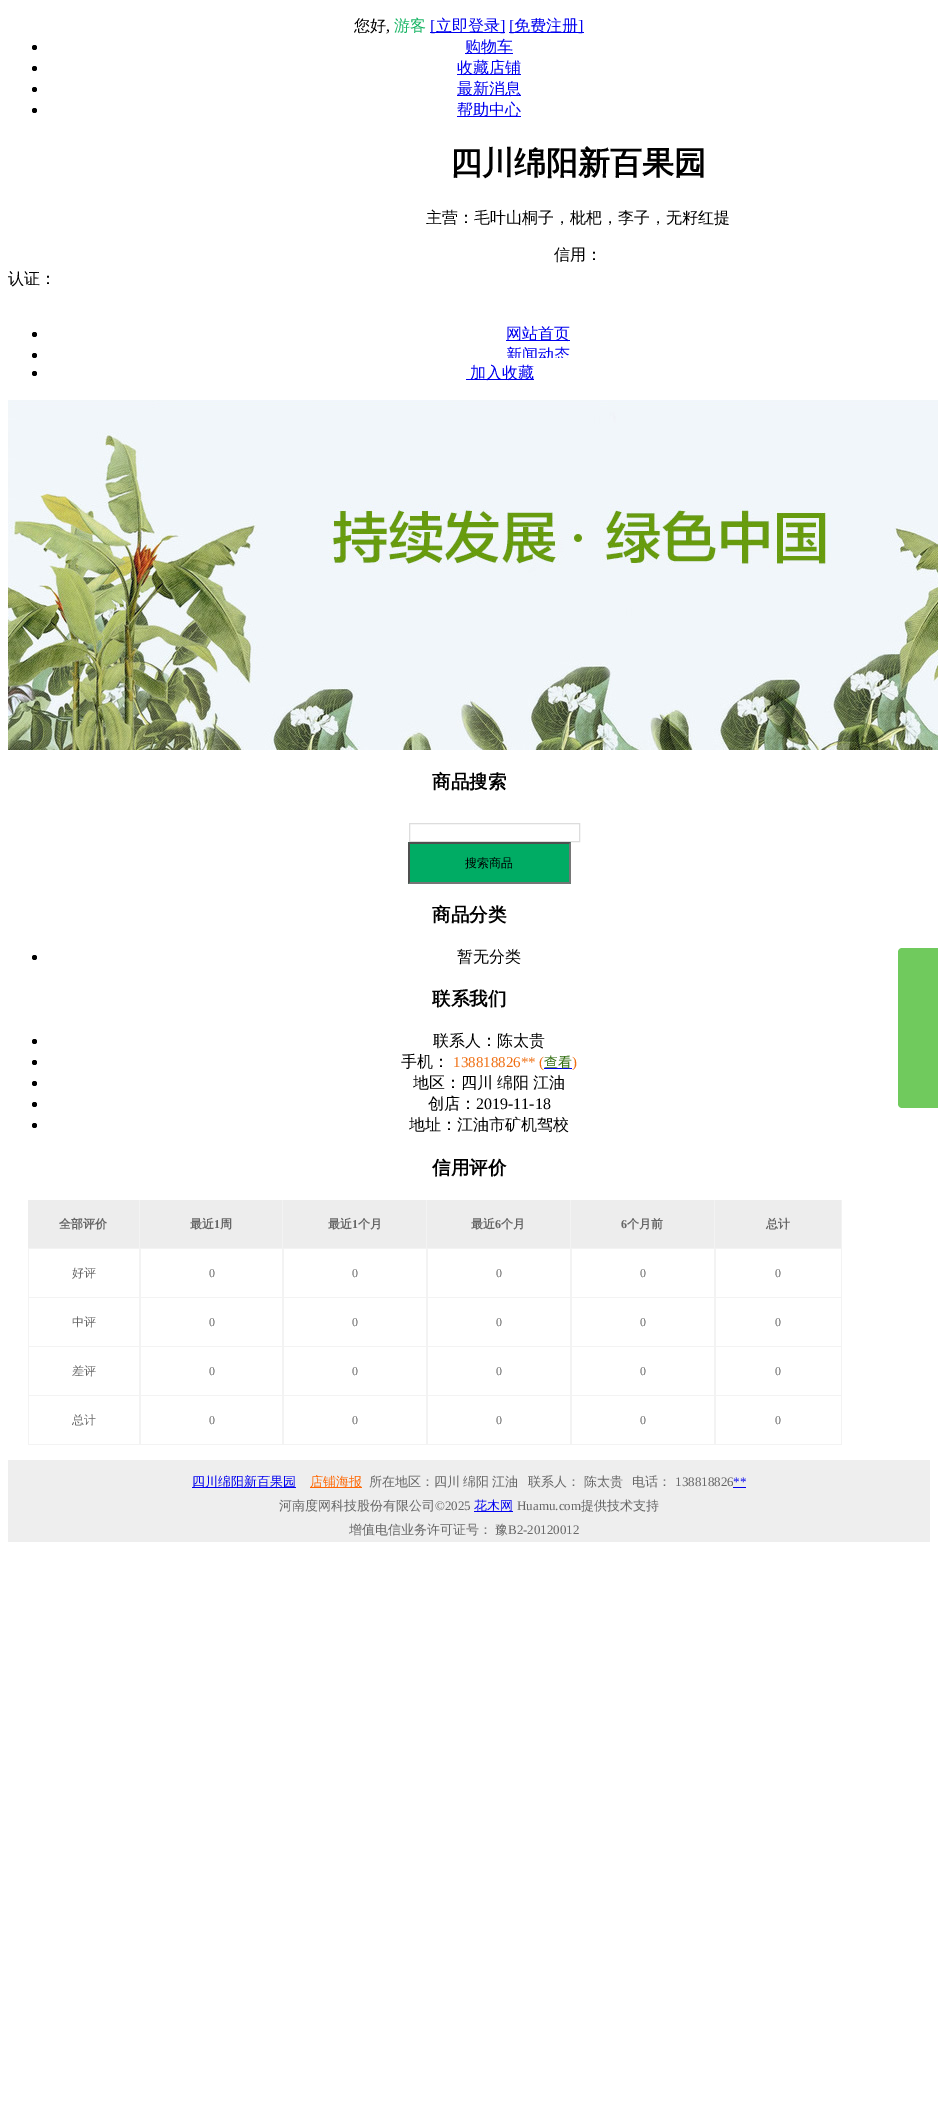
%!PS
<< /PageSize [938 2104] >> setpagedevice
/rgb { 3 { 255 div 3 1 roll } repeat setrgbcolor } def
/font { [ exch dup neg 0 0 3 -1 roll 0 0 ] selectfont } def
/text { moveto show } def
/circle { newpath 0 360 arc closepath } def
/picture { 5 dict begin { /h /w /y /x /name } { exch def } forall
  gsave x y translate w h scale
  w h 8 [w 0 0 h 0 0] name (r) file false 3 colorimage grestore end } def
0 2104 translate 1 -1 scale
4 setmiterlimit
255 255 255 rgb
0 0 938 2104 rectfill
0 0 238 rgb
430 32 75 1 rectfill
509 32 75 1 rectfill
0 0 0 rgb
34.5 47.5 2.5 circle fill
0 0 238 rgb
465 53 48 1 rectfill
0 0 0 rgb
34.5 68.5 2.5 circle fill
0 0 238 rgb
457 74 64 1 rectfill
0 0 0 rgb
34.5 89.5 2.5 circle fill
0 0 238 rgb
457 95 64 1 rectfill
0 0 0 rgb
34.5 110.5 2.5 circle fill
0 0 238 rgb
457 116 64 1 rectfill
0 0 0 rgb
34.5 334.5 2.5 circle fill
0 0 238 rgb
506 340 64 1 rectfill
0 0 0 rgb
34.5 355.5 2.5 circle fill
34.5 373.5 2.5 circle fill
0 0 238 rgb
466 379 68 1 rectfill
(img_01.rgb) 8 400 930 350 picture
221 221 221 rgb
409.5 823.5 170 18 rectstroke
0 172 100 rgb
408 842 163 42 rectfill
79 79 79 rgb
408 842 moveto 163 0 rlineto -2 2 rlineto -159 0 rlineto closepath fill
118 118 118 rgb
571 842 moveto 0 42 rlineto -2 -2 rlineto 0 -38 rlineto closepath fill
571 884 moveto -163 0 rlineto 2 -2 rlineto 159 0 rlineto closepath fill
79 79 79 rgb
408 884 moveto 0 -42 rlineto 2 2 rlineto 0 38 rlineto closepath fill
0 0 0 rgb
34.5 957.5 2.5 circle fill
34.5 1041.5 2.5 circle fill
34.5 1062.5 2.5 circle fill
0 0 238 rgb
544 1068 28 1 rectfill
0 0 0 rgb
34.5 1083.5 2.5 circle fill
34.5 1104.5 2.5 circle fill
34.5 1125.5 2.5 circle fill
237 237 237 rgb
28 1200 111 48 rectfill
243 243 243 rgb
139 1200 1 245 rectfill
28 1248 112 1 rectfill
237 237 237 rgb
140 1200 142 48 rectfill
243 243 243 rgb
282 1200 1 245 rectfill
140 1248 143 1 rectfill
237 237 237 rgb
283 1200 143 48 rectfill
243 243 243 rgb
426 1200 1 245 rectfill
283 1248 144 1 rectfill
237 237 237 rgb
427 1200 143 48 rectfill
243 243 243 rgb
570 1200 1 245 rectfill
427 1248 144 1 rectfill
237 237 237 rgb
571 1200 143 48 rectfill
243 243 243 rgb
714 1200 1 245 rectfill
571 1248 144 1 rectfill
237 237 237 rgb
715 1200 126 48 rectfill
243 243 243 rgb
841 1200 1 245 rectfill
715 1248 127 1 rectfill
28 1297 814 1 rectfill
28 1249 1 49 rectfill
140 1249 1 49 rectfill
283 1249 1 49 rectfill
427 1249 1 49 rectfill
571 1249 1 49 rectfill
715 1249 1 49 rectfill
28 1346 814 1 rectfill
28 1298 1 49 rectfill
140 1298 1 49 rectfill
283 1298 1 49 rectfill
427 1298 1 49 rectfill
571 1298 1 49 rectfill
715 1298 1 49 rectfill
28 1395 814 1 rectfill
28 1347 1 49 rectfill
140 1347 1 49 rectfill
283 1347 1 49 rectfill
427 1347 1 49 rectfill
571 1347 1 49 rectfill
715 1347 1 49 rectfill
28 1444 814 1 rectfill
28 1396 1 49 rectfill
140 1396 1 49 rectfill
283 1396 1 49 rectfill
427 1396 1 49 rectfill
571 1396 1 49 rectfill
715 1396 1 49 rectfill
112 202 93 rgb
902 948 moveto 36 0 rlineto 0 160 rlineto -36 0 rlineto -2 0 -4 -2 -4 -4 rcurveto 0 -152 rlineto 0 -2 2 -4 4 -4 rcurveto closepath fill
238 238 238 rgb
8 1460 922 82 rectfill
0 0 238 rgb
192 1487 104 1 rectfill
255 102 0 rgb
310 1487 52 1 rectfill
0 0 238 rgb
733 1487 13 1 rectfill
474 1511 39 1 rectfill
/WenQuanYiZenHei-Medium 16 font
0 0 0 rgb
(您好) 354 31 text
/LiberationSerif-Regular 16 font
(,) 386 31 text
/WenQuanYiZenHei-Medium 16 font
24 181 100 rgb
(游客) 394 31 text
/LiberationSerif-Regular 16 font
0 0 238 rgb
([) 430 31 text
/WenQuanYiZenHei-Medium 16 font
(立即登录) 436 31 text
/LiberationSerif-Regular 16 font
(]) 500 31 text
([) 509 31 text
/WenQuanYiZenHei-Medium 16 font
(免费注册) 514 31 text
/LiberationSerif-Regular 16 font
(]) 578 31 text
/WenQuanYiZenHei-Medium 16 font
(购物车) 465 52 text
(收藏店铺) 457 73 text
(最新消息) 457 94 text
(帮助中心) 457 115 text
/WenQuanYiZenHei-Bold 32 font
0 0 0 rgb
(四川绵阳新百果园) 450 174 text
/WenQuanYiZenHei-Medium 16 font
(主营：毛叶山桐子，枇杷，李子，无籽红提) 426 223 text
(信用：) 554 260 text
(认证：) 8 284 text
0 0 238 rgb
(网站首页) 506 339 text
gsave
8 308 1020 50 rectclip
(新闻动态) 506 360 text
grestore
(加入收藏) 470 378 text
/WenQuanYiZenHei-Bold 18.5 font
0 0 0 rgb
(商品搜索) 432 788 text
/WenQuanYiZenHei-Medium 12 font
(搜索商品) 465 867 text
/WenQuanYiZenHei-Bold 18.5 font
(商品分类) 432 921 text
/WenQuanYiZenHei-Medium 16 font
(暂无分类) 457 962 text
/WenQuanYiZenHei-Bold 18.5 font
(联系我们) 432 1005 text
/WenQuanYiZenHei-Medium 16 font
(联系人：陈太贵) 433 1046 text
(手机：) 401 1067 text
/LiberationSerif-Regular 15 font
240 110 16 rgb
(138818826** \() 453 1067 text
/WenQuanYiZenHei-Medium 14 font
48 109 14 rgb
(查看) 544 1067 text
/LiberationSerif-Regular 15 font
240 110 16 rgb
(\)) 572 1067 text
/WenQuanYiZenHei-Medium 16 font
0 0 0 rgb
(地区：) 413 1088 text
461 1088 moveto -1 0 32 (四川 绵阳 江油) widthshow
(创店：) 428 1109 text
/LiberationSerif-Regular 16 font
(2019-11-18) 476 1109 text
/WenQuanYiZenHei-Medium 16 font
(地址：江油市矿机驾校) 409 1130 text
/WenQuanYiZenHei-Bold 18.5 font
(信用评价) 432 1174 text
/WenQuanYiZenHei-Bold 12 font
102 102 102 rgb
(全部评价) 59 1228 text
(最近) 190 1228 text
/LiberationSerif-Bold 12 font
(1) 214 1228 text
/WenQuanYiZenHei-Bold 12 font
(周) 220 1228 text
(最近) 328 1228 text
/LiberationSerif-Bold 12 font
(1) 352 1228 text
/WenQuanYiZenHei-Bold 12 font
(个月) 358 1228 text
(最近) 471 1228 text
/LiberationSerif-Bold 12 font
(6) 495 1228 text
/WenQuanYiZenHei-Bold 12 font
(个月) 501 1228 text
/LiberationSerif-Bold 12 font
(6) 621 1228 text
/WenQuanYiZenHei-Bold 12 font
(个月前) 627 1228 text
(总计) 766 1228 text
/WenQuanYiZenHei-Medium 12 font
(好评) 72 1277 text
/LiberationSerif-Regular 12 font
(0) 209 1277 text
(0) 352 1277 text
(0) 496 1277 text
(0) 640 1277 text
(0) 775 1277 text
/WenQuanYiZenHei-Medium 12 font
(中评) 72 1326 text
/LiberationSerif-Regular 12 font
(0) 209 1326 text
(0) 352 1326 text
(0) 496 1326 text
(0) 640 1326 text
(0) 775 1326 text
/WenQuanYiZenHei-Medium 12 font
(差评) 72 1375 text
/LiberationSerif-Regular 12 font
(0) 209 1375 text
(0) 352 1375 text
(0) 496 1375 text
(0) 640 1375 text
(0) 775 1375 text
/WenQuanYiZenHei-Medium 12 font
(总计) 72 1424 text
/LiberationSerif-Regular 12 font
(0) 209 1424 text
(0) 352 1424 text
(0) 496 1424 text
(0) 640 1424 text
(0) 775 1424 text
/WenQuanYiZenHei-Medium 13 font
0 0 238 rgb
(四川绵阳新百果园) 192 1486 text
255 102 0 rgb
(店铺海报) 310 1486 text
102 102 102 rgb
369 1486 moveto -1 0 32 (所在地区：四川 绵阳 江油) widthshow
(联系人： 陈太贵) 528 1486 text
(电话：) 632 1486 text
/LiberationSerif-Regular 13 font
(138818826) 675 1486 text
0 0 238 rgb
(**) 733 1486 text
/WenQuanYiZenHei-Medium 13 font
102 102 102 rgb
(河南度网科技股份有限公司) 279 1510 text
/LiberationSerif-Regular 13 font
(©2025) 435 1510 text
/WenQuanYiZenHei-Medium 13 font
0 0 238 rgb
(花木网) 474 1510 text
/LiberationSerif-Regular 13 font
102 102 102 rgb
(Huamu.com) 517 1510 text
/WenQuanYiZenHei-Medium 13 font
(提供技术支持) 581 1510 text
349 1534 moveto -1 0 32 (增值电信业务许可证号： 豫) widthshow
/LiberationSerif-Regular 13 font
(B2-20120012) 508 1534 text
showpage
